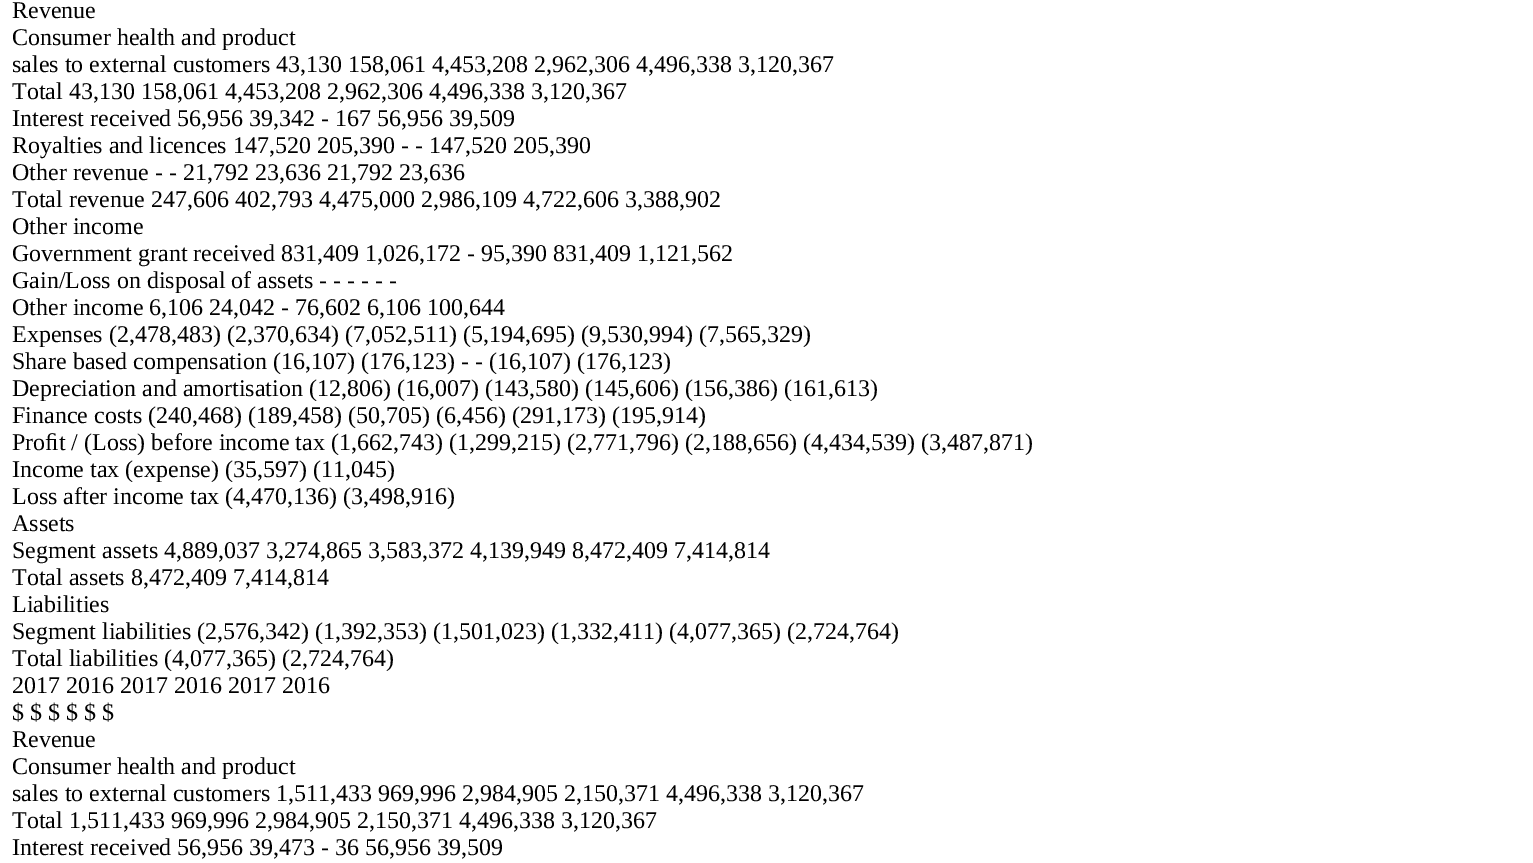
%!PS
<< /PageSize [1533 863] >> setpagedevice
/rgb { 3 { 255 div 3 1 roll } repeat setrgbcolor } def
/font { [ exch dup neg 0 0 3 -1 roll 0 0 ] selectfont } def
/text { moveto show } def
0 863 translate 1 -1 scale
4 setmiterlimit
255 255 255 rgb
0 0 1533 863 rectfill
/LiberationSerif-Regular 24 font
0 0 0 rgb
(Revenue) 12 18 text
(Consumer health and product) 12 45 text
(sales to external customers 43,130 158,061 4,453,208 2,962,306 4,496,338 3,120,367) 12 72 text
(Total 43,130 158,061 4,453,208 2,962,306 4,496,338 3,120,367) 12 99 text
(Interest received 56,956 39,342 - 167 56,956 39,509) 12 126 text
(Royalties and licences 147,520 205,390 - - 147,520 205,390) 12 153 text
(Other revenue - - 21,792 23,636 21,792 23,636) 12 180 text
(Total revenue 247,606 402,793 4,475,000 2,986,109 4,722,606 3,388,902) 12 207 text
(Other income) 12 234 text
(Government grant received 831,409 1,026,172 - 95,390 831,409 1,121,562) 12 261 text
(Gain/Loss on disposal of assets - - - - - -) 12 288 text
(Other income 6,106 24,042 - 76,602 6,106 100,644) 12 315 text
(Expenses \(2,478,483\) \(2,370,634\) \(7,052,511\) \(5,194,695\) \(9,530,994\) \(7,565,329\)) 12 342 text
(Share based compensation \(16,107\) \(176,123\) - - \(16,107\) \(176,123\)) 12 369 text
(Depreciation and amortisation \(12,806\) \(16,007\) \(143,580\) \(145,606\) \(156,386\) \(161,613\)) 12 396 text
(Finance costs \(240,468\) \(189,458\) \(50,705\) \(6,456\) \(291,173\) \(195,914\)) 12 423 text
(Proﬁt / \(Loss\) before income tax \(1,662,743\) \(1,299,215\) \(2,771,796\) \(2,188,656\) \(4,434,539\) \(3,487,871\)) 12 450 text
(Income tax \(expense\) \(35,597\) \(11,045\)) 12 477 text
(Loss after income tax \(4,470,136\) \(3,498,916\)) 12 504 text
(Assets) 12 531 text
(Segment assets 4,889,037 3,274,865 3,583,372 4,139,949 8,472,409 7,414,814) 12 558 text
(Total assets 8,472,409 7,414,814) 12 585 text
(Liabilities) 12 612 text
(Segment liabilities \(2,576,342\) \(1,392,353\) \(1,501,023\) \(1,332,411\) \(4,077,365\) \(2,724,764\)) 12 639 text
(Total liabilities \(4,077,365\) \(2,724,764\)) 12 666 text
(2017 2016 2017 2016 2017 2016) 12 693 text
($ $ $ $ $ $) 12 720 text
(Revenue) 12 747 text
(Consumer health and product) 12 774 text
(sales to external customers 1,511,433 969,996 2,984,905 2,150,371 4,496,338 3,120,367) 12 801 text
(Total 1,511,433 969,996 2,984,905 2,150,371 4,496,338 3,120,367) 12 828 text
(Interest received 56,956 39,473 - 36 56,956 39,509) 12 855 text
showpage
